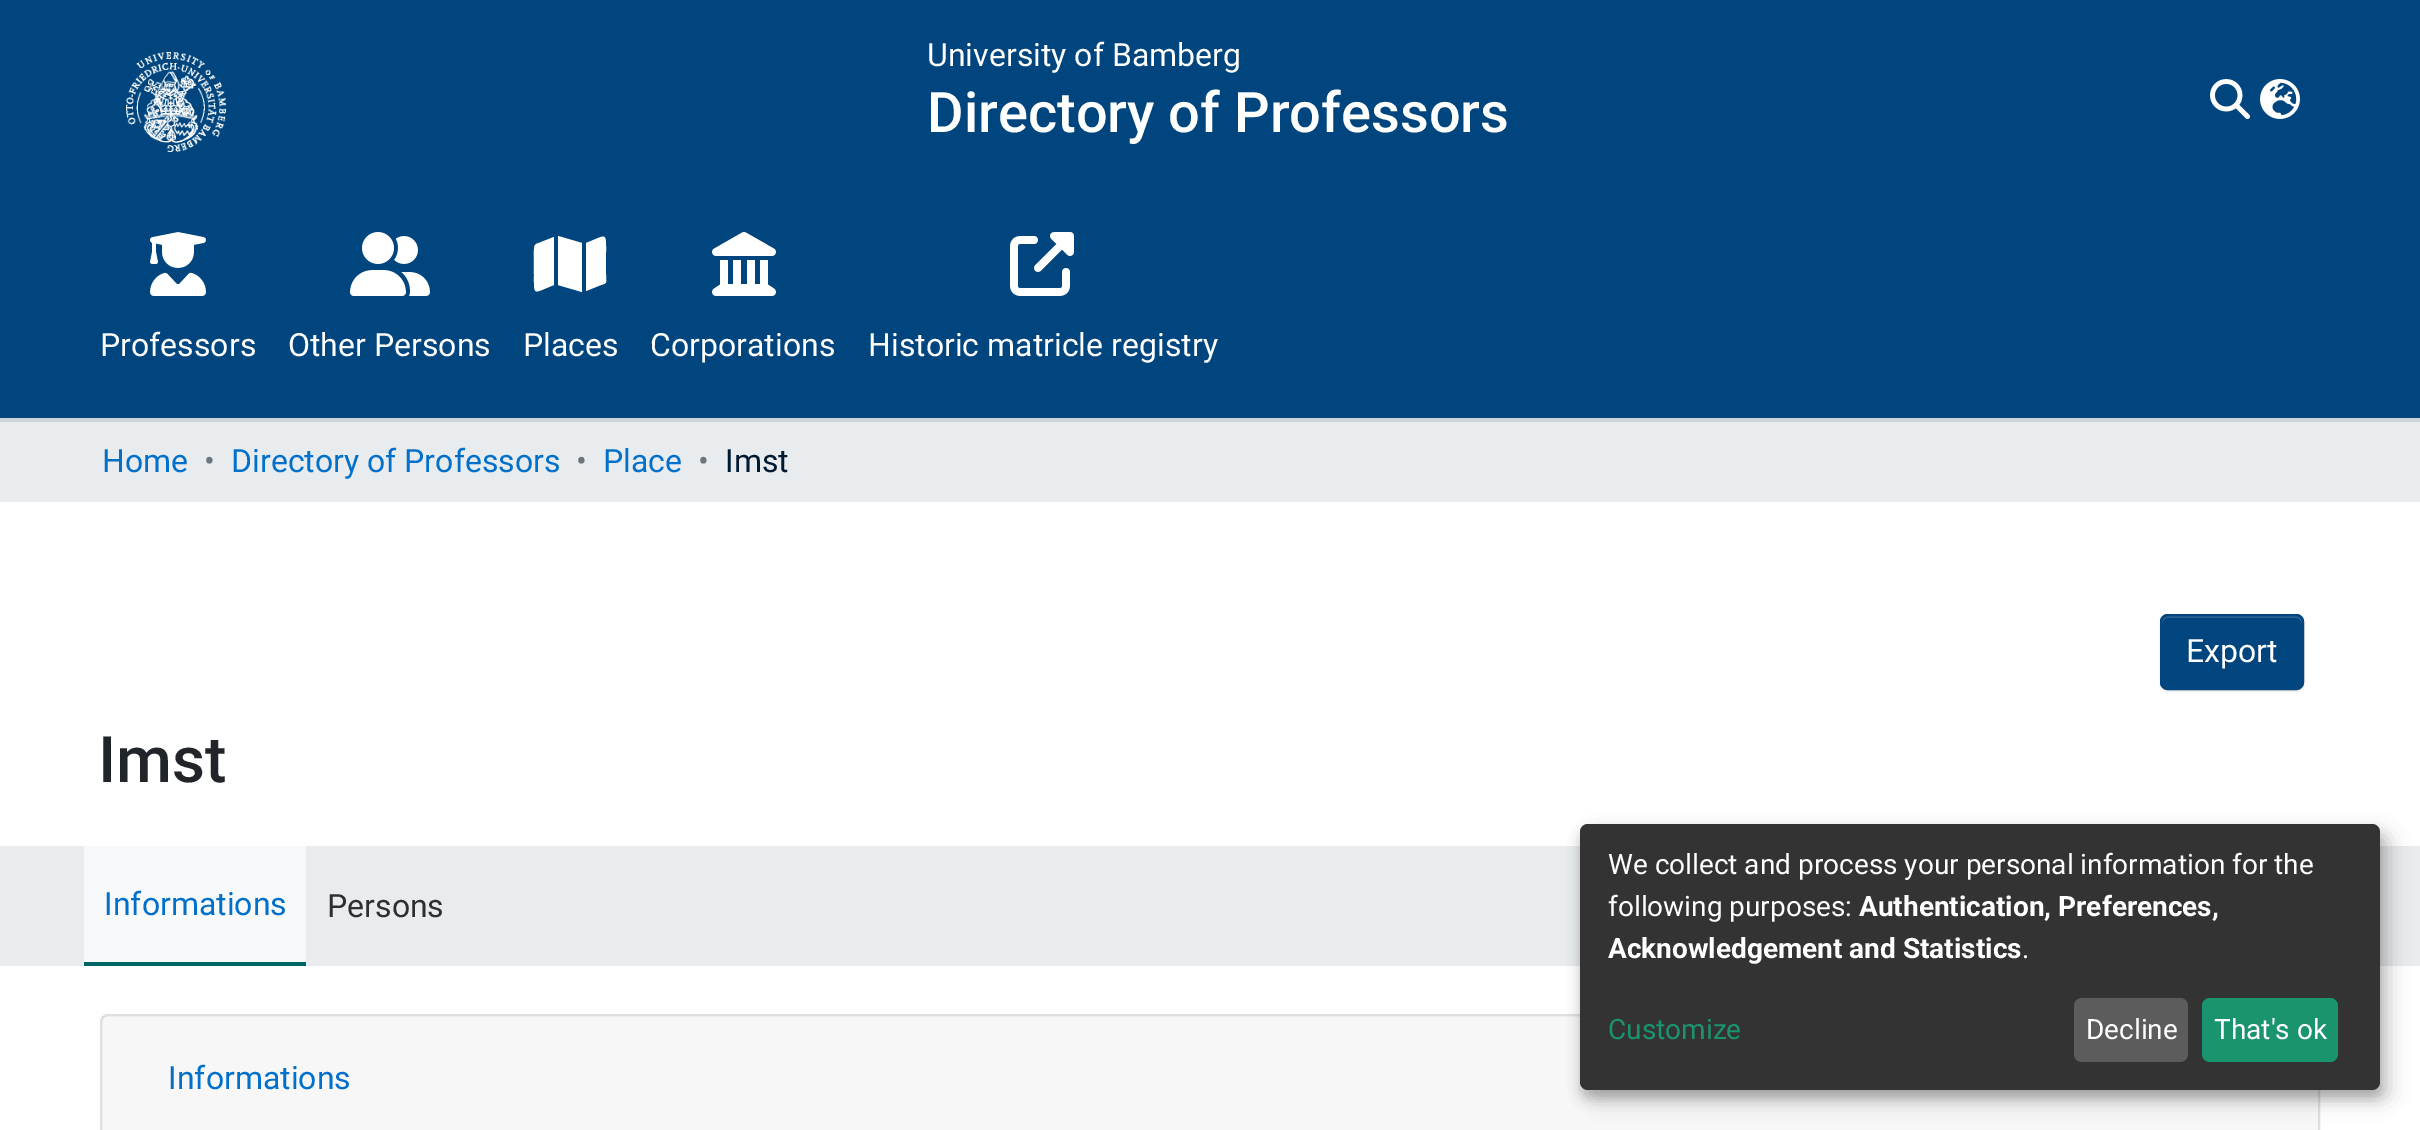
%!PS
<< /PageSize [2420 1130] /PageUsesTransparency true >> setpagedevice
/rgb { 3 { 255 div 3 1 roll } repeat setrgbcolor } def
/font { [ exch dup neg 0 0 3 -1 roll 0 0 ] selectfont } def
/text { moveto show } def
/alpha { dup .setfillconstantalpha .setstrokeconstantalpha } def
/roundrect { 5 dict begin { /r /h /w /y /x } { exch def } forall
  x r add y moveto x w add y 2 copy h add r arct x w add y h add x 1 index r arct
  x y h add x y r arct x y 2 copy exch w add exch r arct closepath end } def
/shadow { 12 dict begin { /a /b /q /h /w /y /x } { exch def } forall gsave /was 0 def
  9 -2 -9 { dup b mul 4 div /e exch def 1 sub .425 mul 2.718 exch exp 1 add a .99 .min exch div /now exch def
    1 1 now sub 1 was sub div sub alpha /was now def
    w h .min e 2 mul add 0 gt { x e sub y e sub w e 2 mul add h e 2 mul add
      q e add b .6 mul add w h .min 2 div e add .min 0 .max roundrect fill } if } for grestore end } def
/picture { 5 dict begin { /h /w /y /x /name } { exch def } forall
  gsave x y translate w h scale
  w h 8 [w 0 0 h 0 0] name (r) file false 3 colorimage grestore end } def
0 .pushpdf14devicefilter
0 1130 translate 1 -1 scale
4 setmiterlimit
255 255 255 rgb
0 0 2420 1130 rectfill
206 212 218 rgb
0 418 2420 4 rectfill
0 69 125 rgb
0 0 2420 418 rectfill
(img_01.rgb) 126 52 100 100 picture
(img_02.rgb) 2210 79 40 40 picture
(img_03.rgb) 2260 79 40 40 picture
(img_04.rgb) 150 232 56 64 picture
(img_05.rgb) 350 232 80 64 picture
255 255 255 rgb
582 292 moveto -24 -7 rlineto 0 -49 rlineto 24 7 rlineto closepath 586 291 moveto 0 -48 rlineto 21 -8 20 -12 20 10 rcurveto 0 21 rlineto 0 8 2 9 -5 11 rcurveto closepath 536 244 moveto 18 -7 rlineto 0 48 rlineto -21 8 -20 12 -20 -10 rcurveto 0 -5 -1 -28 1 -30 rcurveto closepath fill
(img_06.rgb) 712 232 64 64 picture
(img_07.rgb) 1010 232 64 64 picture
233 236 239 rgb
0 422 2420 80 rectfill
0 0 0 rgb
2160 616 144 76 8 1 0.07 shadow
0 69 125 rgb
2160 614 144 76 8 roundrect fill
38 97 145 rgb
2168 618 moveto 128 0 rlineto 3 0 6 3 6 6 rcurveto 0 -2 rlineto 0 -3 -3 -6 -6 -6 rcurveto -128 0 rlineto -3 0 -6 3 -6 6 rcurveto 0 2 rlineto 0 -3 3 -6 6 -6 rcurveto closepath fill
0 69 125 rgb
2 setlinewidth
2161 615 142 74 7 roundrect stroke
233 236 239 rgb
0 846 2420 120 rectfill
0 102 102 rgb
84 962 222 4 rectfill
248 249 250 rgb
84 846 222 116 rectfill
223 223 223 rgb
101 1015 2218 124 7 roundrect stroke
0.03 alpha
0 0 0 rgb
102 1016 2216 114 rectfill
1 alpha
1590 834 800 266 8 10 0.19 shadow
1580 832 800 266 8 6 0.2 shadow
51 51 51 rgb
1580 824 800 266 8 roundrect fill
92 92 92 rgb
2074 998 114 64 8 roundrect fill
26 147 111 rgb
2202 998 136 64 8 roundrect fill
/Roboto-Regular 32 font
255 255 255 rgb
(University of Bamberg) 927 66 text
/Roboto-Medium 56 font
(Directory of Professors) 927 132 text
/Roboto-Regular 32 font
(Professors) 100 356 text
(Other Persons) 288 356 text
(Places) 523 356 text
(Corporations) 650 356 text
(Historic matricle registry) 868 356 text
0 112 202 rgb
(Home) 102 472 text
108 117 125 rgb
(•) 204 472 text
0 112 202 rgb
(Directory of Professors) 231 472 text
108 117 125 rgb
(•) 576 472 text
0 112 202 rgb
(Place) 603 472 text
108 117 125 rgb
(•) 698 472 text
0 27 49 rgb
(Imst) 725 472 text
255 255 255 rgb
(Export) 2186 662 text
/Roboto-Medium 64 font
33 37 41 rgb
(Imst) 98 782 text
/Roboto-Regular 32 font
0 112 202 rgb
(Informations) 104 915 text
47 47 48 rgb
(Persons) 327 917 text
0 112 202 rgb
(Informations) 168 1089 text
/Roboto-Regular 28 font
255 255 255 rgb
(We collect and process your personal information for the) 1608 874 text
(following purposes:) 1608 916 text
/Roboto-Bold 28 font
(Authentication, Preferences,) 1859 916 text
(Acknowledgement and Statistics) 1608 958 text
/Roboto-Regular 28 font
(.) 2022 958 text
26 147 111 rgb
(Customize) 1608 1039 text
255 255 255 rgb
(Decline) 2086 1039 text
(That's ok) 2214 1039 text
.poppdf14devicefilter showpage
